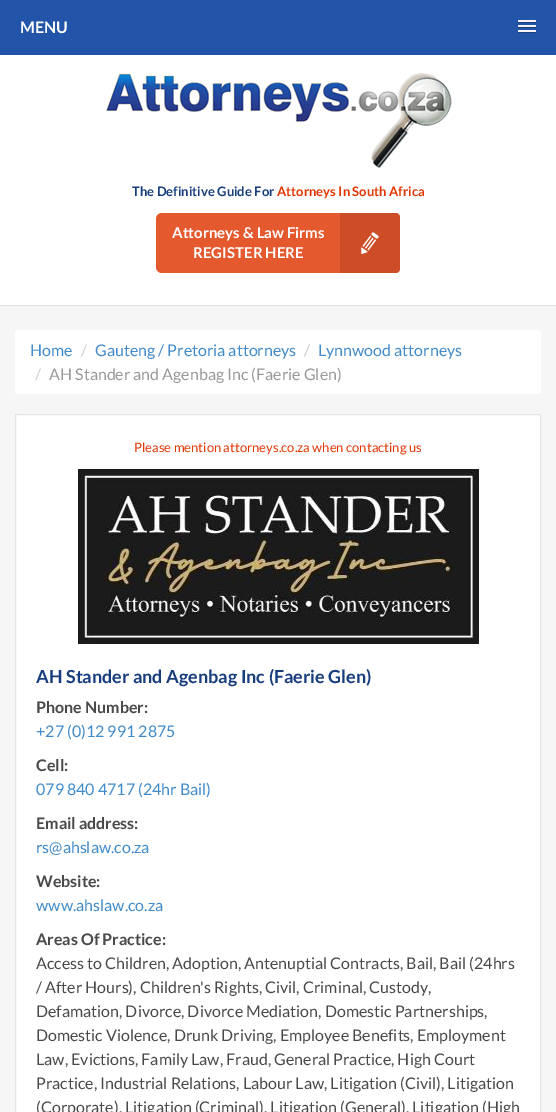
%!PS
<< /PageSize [556 1112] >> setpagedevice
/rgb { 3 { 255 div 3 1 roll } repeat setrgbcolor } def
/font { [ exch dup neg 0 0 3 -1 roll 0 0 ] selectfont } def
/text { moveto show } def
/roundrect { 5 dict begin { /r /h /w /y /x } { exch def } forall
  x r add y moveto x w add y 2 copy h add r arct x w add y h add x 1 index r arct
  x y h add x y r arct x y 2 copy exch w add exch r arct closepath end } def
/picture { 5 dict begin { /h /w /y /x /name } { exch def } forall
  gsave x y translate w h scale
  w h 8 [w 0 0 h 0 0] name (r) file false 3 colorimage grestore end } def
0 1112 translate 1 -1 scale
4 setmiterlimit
246 246 246 rgb
0 0 556 1112 rectfill
255 255 255 rgb
0 55 556 250 rectfill
223 223 223 rgb
0 305 556 1 rectfill
34 84 169 rgb
0 0 556 55 rectfill
26 63 127 rgb
518 21.5 moveto -1 2 3.5 1.5 3.5 1.5 rcurveto 11 0 rlineto 0 0 4.5 0.5 3.5 -1.5 rcurveto -1 1 -7.5 0.5 -9 0.5 rcurveto -1.5 0 -8 0.5 -9 -0.5 rcurveto closepath fill
245 245 245 rgb
518 20 18 2 1 roundrect fill
26 63 127 rgb
518 26.5 moveto -1 2 3.5 1.5 3.5 1.5 rcurveto 11 0 rlineto 0 0 4.5 0.5 3.5 -1.5 rcurveto -1 1 -7.5 0.5 -9 0.5 rcurveto -1.5 0 -8 0.5 -9 -0.5 rcurveto closepath fill
245 245 245 rgb
518 25 18 2 1 roundrect fill
26 63 127 rgb
518 31.5 moveto -1 2 3.5 1.5 3.5 1.5 rcurveto 11 0 rlineto 0 0 4.5 0.5 3.5 -1.5 rcurveto -1 1 -7.5 0.5 -9 0.5 rcurveto -1.5 0 -8 0.5 -9 -0.5 rcurveto closepath fill
245 245 245 rgb
518 30 18 2 1 roundrect fill
(img_01.rgb) 106 72 346 96 picture
229 89 47 rgb
156 213 244 60 6 roundrect fill
205 77 38 rgb
340 213 moveto 56 0 rlineto 2 0 4 2 4 4 rcurveto 0 52 rlineto 0 2 -2 4 -4 4 rcurveto -56 0 rlineto closepath fill
(img_02.rgb) 361 232 18 22 picture
255 255 255 rgb
15 330 526 64 4 roundrect fill
15.5 414.5 moveto 525 0 rlineto 0 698 rlineto -525 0 rlineto closepath gsave fill grestore
226 230 230 rgb
stroke
(img_03.rgb) 78 469 401 175 picture
/Lato-Bold 16 font
255 255 255 rgb
(MENU) 20 33 text
/Lato-Bold 13 font
23 61 125 rgb
(The Definitive Guide For) 132 196 text
225 54 2 rgb
(Attorneys In South Africa) 277 196 text
/Lato-Bold 15 font
255 255 255 rgb
(Attorneys & Law Firms) 172 238 text
(REGISTER HERE) 193 258 text
/Lato-Regular 16 font
66 139 202 rgb
(Home) 30 356 text
204 204 204 rgb
(/) 81 356 text
66 139 202 rgb
(Gauteng / Pretoria attorneys) 95 356 text
204 204 204 rgb
(/) 304 356 text
66 139 202 rgb
(Lynnwood attorneys) 318 356 text
204 204 204 rgb
(/) 35 380 text
153 153 153 rgb
(AH Stander and Agenbag Inc \(Faerie Glen\)) 49 380 text
/Lato-Regular 13 font
225 54 2 rgb
(Please mention attorneys.co.za when contacting us) 134 452 text
/Lato-Bold 18 font
23 61 125 rgb
(AH Stander and Agenbag Inc \(Faerie Glen\)) 36 683 text
/Lato-Bold 16 font
73 73 73 rgb
(Phone Number:) 36 713 text
/Lato-Regular 16 font
66 139 202 rgb
(+27 \(0\)12 991 2875) 36 737 text
/Lato-Bold 16 font
73 73 73 rgb
(Cell:) 36 771 text
/Lato-Regular 16 font
66 139 202 rgb
(079 840 4717 \(24hr Bail\)) 36 795 text
/Lato-Bold 16 font
73 73 73 rgb
(Email address:) 36 829 text
/Lato-Regular 16 font
66 139 202 rgb
(rs@ahslaw.co.za) 36 853 text
/Lato-Bold 16 font
73 73 73 rgb
(Website:) 36 887 text
/Lato-Regular 16 font
66 139 202 rgb
(www.ahslaw.co.za) 36 911 text
/Lato-Bold 16 font
73 73 73 rgb
(Areas Of Practice:) 36 945 text
/Lato-Regular 16 font
(Access to Children, Adoption, Antenuptial Contracts, Bail, Bail \(24hrs) 36 969 text
(/ After Hours\), Children's Rights, Civil, Criminal, Custody,) 36 993 text
(Defamation, Divorce, Divorce Mediation, Domestic Partnerships,) 36 1017 text
(Domestic Violence, Drunk Driving, Employee Benefits, Employment) 36 1041 text
(Law, Evictions, Family Law, Fraud, General Practice, High Court) 36 1065 text
(Practice, Industrial Relations, Labour Law, Litigation \(Civil\), Litigation) 36 1089 text
(\(Corporate\), Litigation \(Criminal\), Litigation \(General\), Litigation \(High) 36 1113 text
showpage
